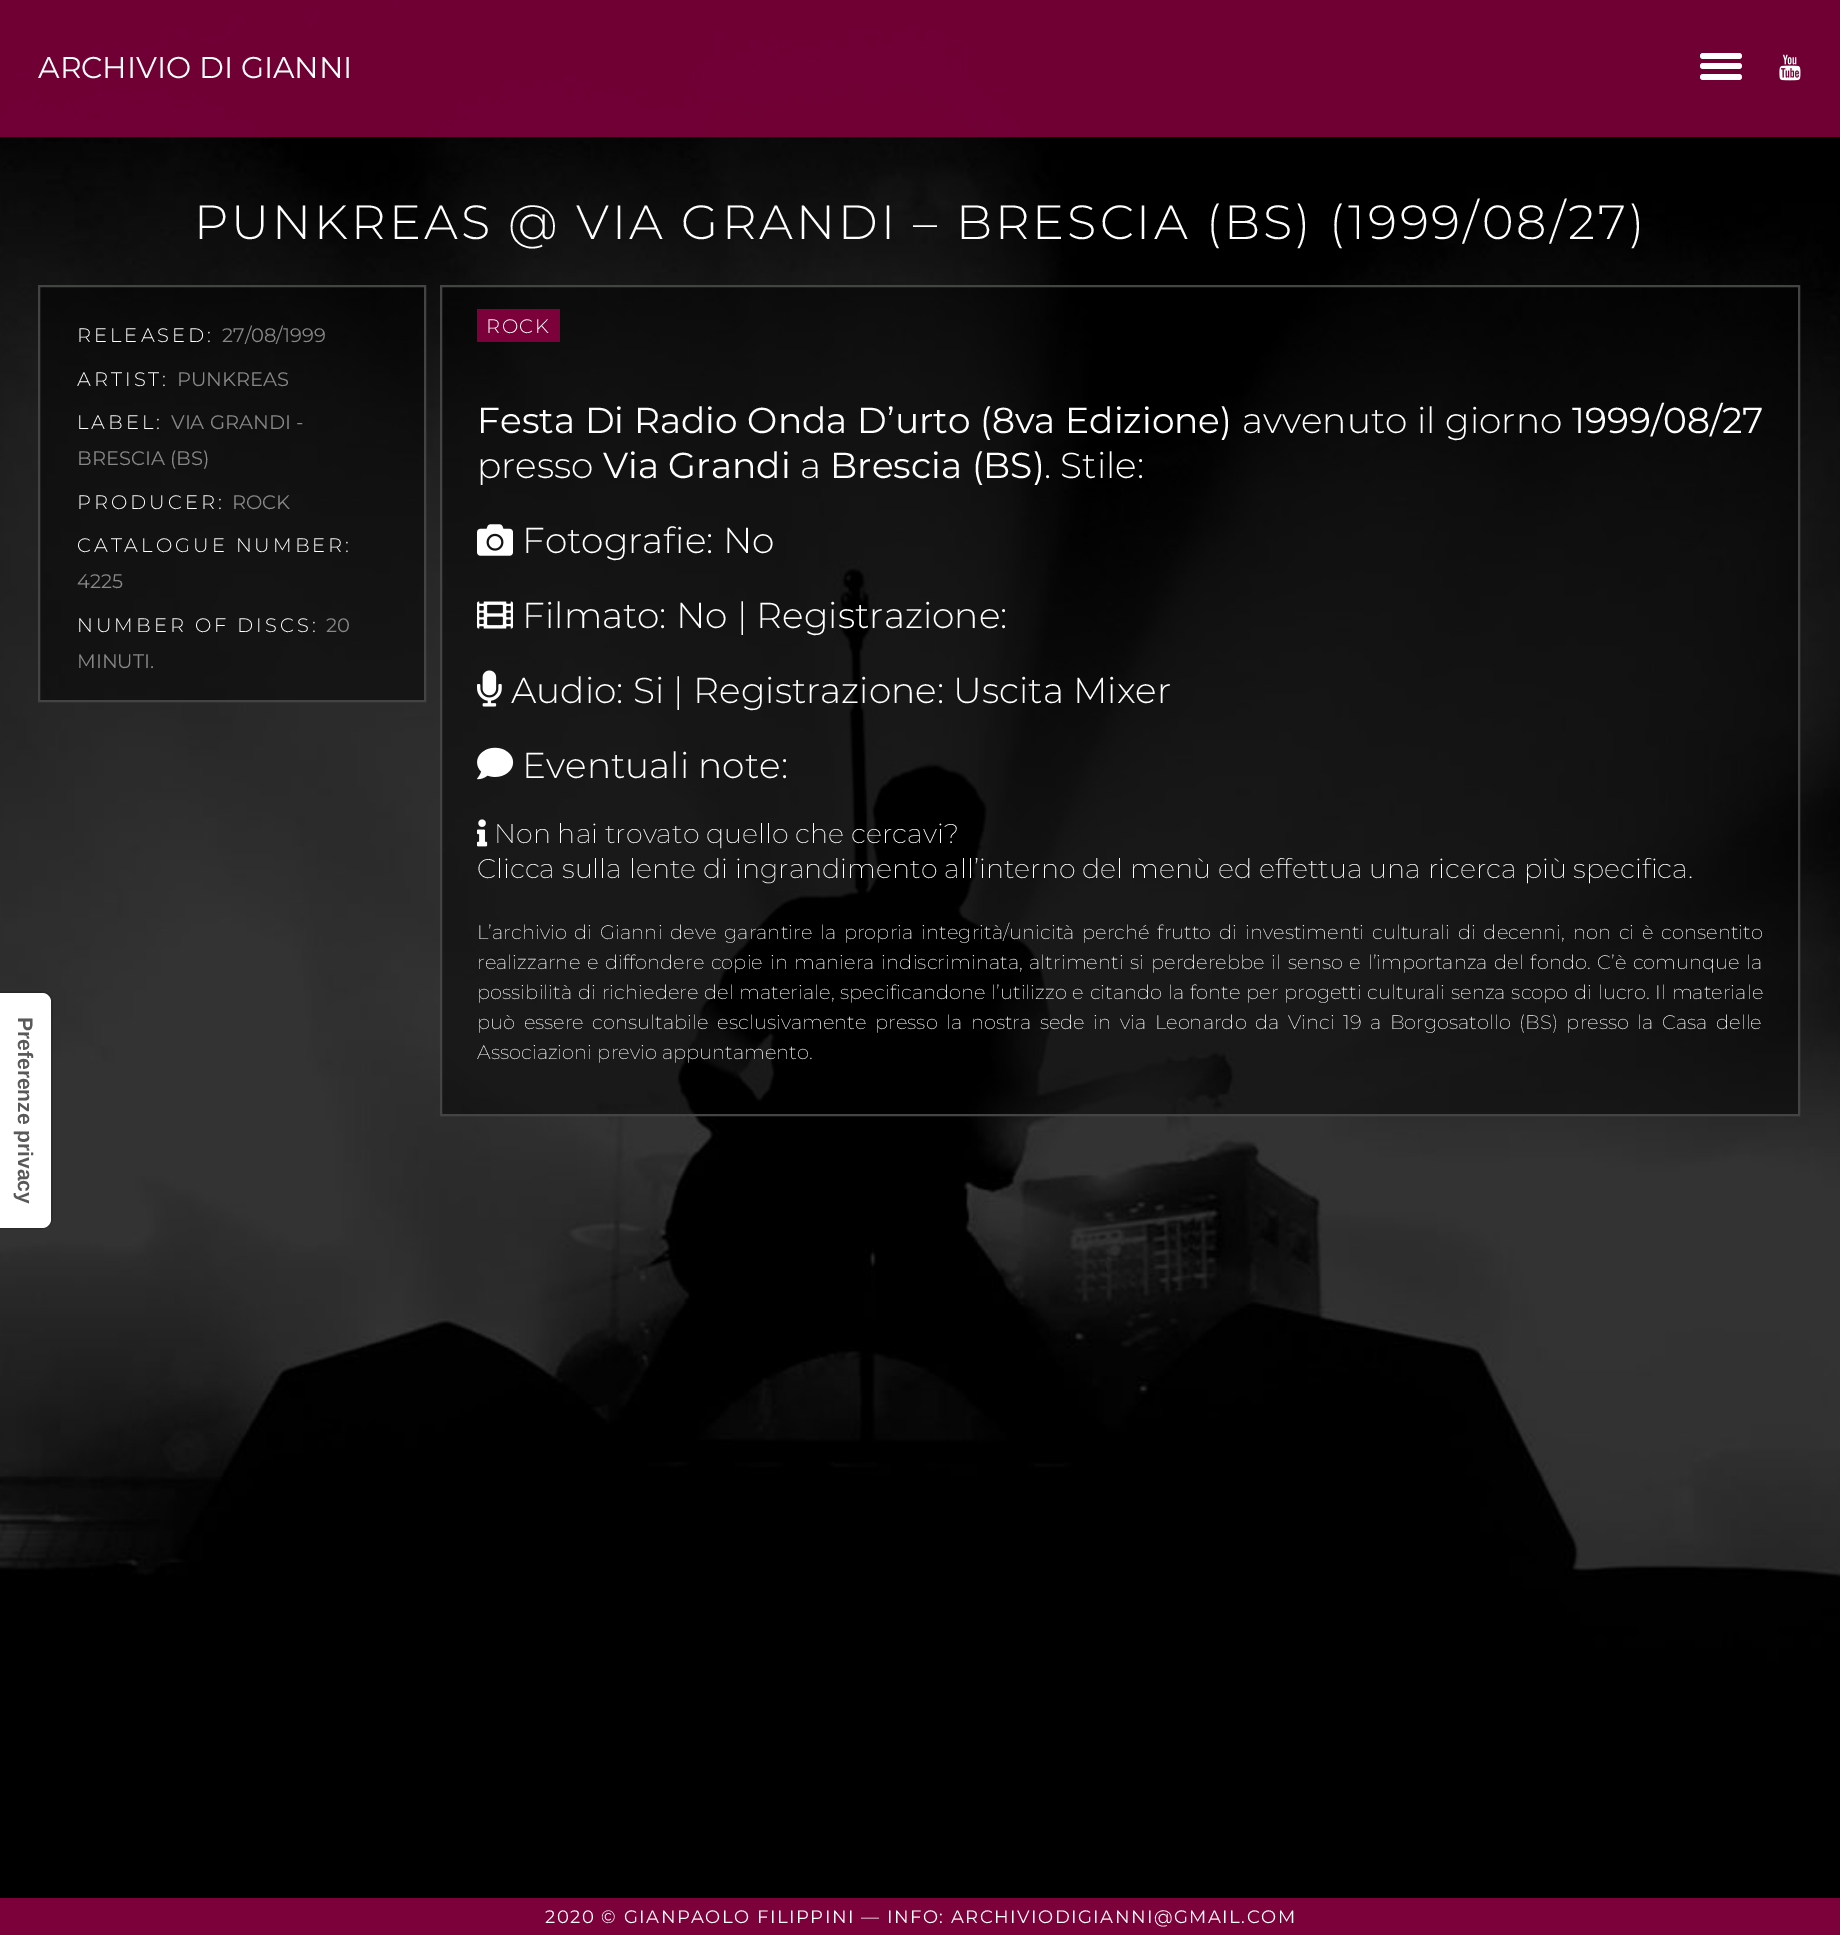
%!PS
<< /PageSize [1840 1935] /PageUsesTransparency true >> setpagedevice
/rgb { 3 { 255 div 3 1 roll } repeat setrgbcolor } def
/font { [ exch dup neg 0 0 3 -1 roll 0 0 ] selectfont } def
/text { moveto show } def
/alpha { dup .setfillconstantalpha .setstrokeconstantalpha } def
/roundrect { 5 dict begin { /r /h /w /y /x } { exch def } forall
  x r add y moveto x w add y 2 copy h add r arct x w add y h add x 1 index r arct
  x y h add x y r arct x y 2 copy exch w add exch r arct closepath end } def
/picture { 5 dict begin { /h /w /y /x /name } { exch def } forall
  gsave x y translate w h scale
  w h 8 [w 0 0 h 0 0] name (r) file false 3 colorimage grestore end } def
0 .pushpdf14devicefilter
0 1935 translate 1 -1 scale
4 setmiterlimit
255 255 255 rgb
0 0 1840 1935 rectfill
(img_01.rgb) 0 0 1840 1898 picture
0.9 alpha
124 0 58 rgb
0 0 1840 137 rectfill
1 alpha
255 255 255 rgb
1700 53 42 6 3 roundrect fill
1700 63 42 6 3 roundrect fill
1700 74 42 6 3 roundrect fill
(img_02.rgb) 1779 54 22 27 picture
0.5 alpha
0 0 0 rgb
39 286 moveto 386 0 rlineto 0 415 rlineto -386 0 rlineto closepath fill
1 alpha
67 69 67 rgb
2 setlinewidth
39 286 moveto 386 0 rlineto 0 415 rlineto -386 0 rlineto closepath stroke
0.5 alpha
0 0 0 rgb
441 286 moveto 1358 0 rlineto 0 829 rlineto -1358 0 rlineto closepath fill
1 alpha
67 69 67 rgb
441 286 moveto 1358 0 rlineto 0 829 rlineto -1358 0 rlineto closepath stroke
124 0 58 rgb
477 309 83 33 rectfill
(img_03.rgb) 477 524 36 32 picture
(img_04.rgb) 477 601 36 28 picture
(img_05.rgb) 477 670 25 37 picture
(img_06.rgb) 477 747 37 33 picture
(img_07.rgb) 477 819 11 28 picture
0.15 alpha
0 0 0 rgb
1.5 setlinewidth
52 1002 moveto 0 217 rlineto 0 5 -4.5 9.5 -10 9.5 rcurveto -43 0 rlineto 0 -236.5 rlineto 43 0 rlineto 5.5 0 10 4.5 10 10 rcurveto closepath stroke
1 alpha
255 255 255 rgb
51 1002 moveto 0 217 rlineto 0 5 -4 9 -9 9 rcurveto -42 0 rlineto 0 -235 rlineto 42 0 rlineto 5 0 9 4 9 9 rcurveto closepath fill
124 0 58 rgb
0 1898 1840 37 rectfill
/Montserrat-Regular 30 font
255 255 255 rgb
(ARCHIVIO DI GIANNI) 38 78 text
/Montserrat-Light 48 font
194 239 moveto 3 0 (PUNKREAS @ VIA GRANDI – BRESCIA \(BS\) \(1999/08/27\)) ashow
/Montserrat-Light 19.5 font
77 342 moveto 3 0 (RELEASED:) ashow
/Montserrat-Regular 19.5 font
136 136 136 rgb
(27/08/1999) 222 342 text
/Montserrat-Light 19.5 font
255 255 255 rgb
77 386 moveto 3 0 (ARTIST:) ashow
/Montserrat-Regular 19.5 font
136 136 136 rgb
(PUNKREAS) 177 386 text
/Montserrat-Light 19.5 font
255 255 255 rgb
77 429 moveto 3 0 (LABEL:) ashow
/Montserrat-Regular 19.5 font
136 136 136 rgb
(VIA GRANDI -) 171 429 text
(BRESCIA \(BS\)) 77 465 text
/Montserrat-Light 19.5 font
255 255 255 rgb
77 509 moveto 3 0 (PRODUCER:) ashow
/Montserrat-Regular 19.5 font
136 136 136 rgb
(ROCK) 232 509 text
/Montserrat-Light 19.5 font
255 255 255 rgb
77 552 moveto 3 0 (CATALOGUE NUMBER:) ashow
/Montserrat-Regular 19.5 font
136 136 136 rgb
(4225) 77 588 text
/Montserrat-Light 19.5 font
255 255 255 rgb
77 632 moveto 3 0 (NUMBER OF DISCS:) ashow
/Montserrat-Regular 19.5 font
136 136 136 rgb
(20) 326 632 text
(MINUTI.) 77 668 text
/Montserrat-Light 19.5 font
255 255 255 rgb
486 333 moveto 1.5 0 (ROCK) ashow
/Montserrat-Regular 36 font
477 433 moveto 0.25 0 32 (Festa Di Radio Onda D’urto \(8va Edizione\)) widthshow
/Montserrat-Light 36 font
1242 433 moveto 0.25 0 32 (avvenuto il giorno) widthshow
/Montserrat-Regular 36 font
(1999/08/27) 1572 433 text
/Montserrat-Light 36 font
(presso) 477 478 text
/Montserrat-Regular 36 font
(Via Grandi) 603 478 text
/Montserrat-Light 36 font
(a) 800 478 text
/Montserrat-Regular 36 font
(Brescia \(BS\)) 830 478 text
/Montserrat-Light 36 font
(. Stile:) 1044 478 text
(Fotografie: No) 522 553 text
(Filmato: No | Registrazione:) 522 628 text
(Audio: Si | Registrazione: Uscita Mixer) 511 703 text
(Eventuali note:) 522 778 text
/Montserrat-ExtraLight 27 font
(Non hai trovato quello che cercavi?) 494 843 text
(Clicca sulla lente di ingrandimento all’interno del menù ed effettua una ricerca più specifica.) 477 878 text
/Montserrat-ExtraLight 19.5 font
477 939 moveto 2.75 0 32 (L’archivio di Gianni deve garantire la propria integrità/unicità perché frutto di investimenti culturali di decenni, non ci è consentito) widthshow
477 969 moveto 1.7 0 32 (realizzarne e diffondere copie in maniera indiscriminata, altrimenti si perderebbe il senso e l’importanza del fondo. C’è comunque la) widthshow
477 999 moveto 0.75 0 32 (possibilità di richiedere del materiale, specificandone l’utilizzo e citando la fonte per progetti culturali senza scopo di lucro. Il materiale) widthshow
477 1029 moveto 3.5 0 32 (può essere consultabile esclusivamente presso la nostra sede in via Leonardo da Vinci 19 a Borgosatollo \(BS\) presso la Casa delle) widthshow
(Associazioni previo appuntamento.) 477 1059 text
/LiberationSans-Bold 21 font
89 89 89 rgb
gsave 18 1017 translate 90 rotate 0 0 moveto (Preferenze privacy) show grestore
/Montserrat-Regular 18 font
255 255 255 rgb
545 1923 moveto 1.5 0 (2020 © GIANPAOLO FILIPPINI — INFO: ARCHIVIODIGIANNI@GMAIL.COM) ashow
.poppdf14devicefilter showpage
